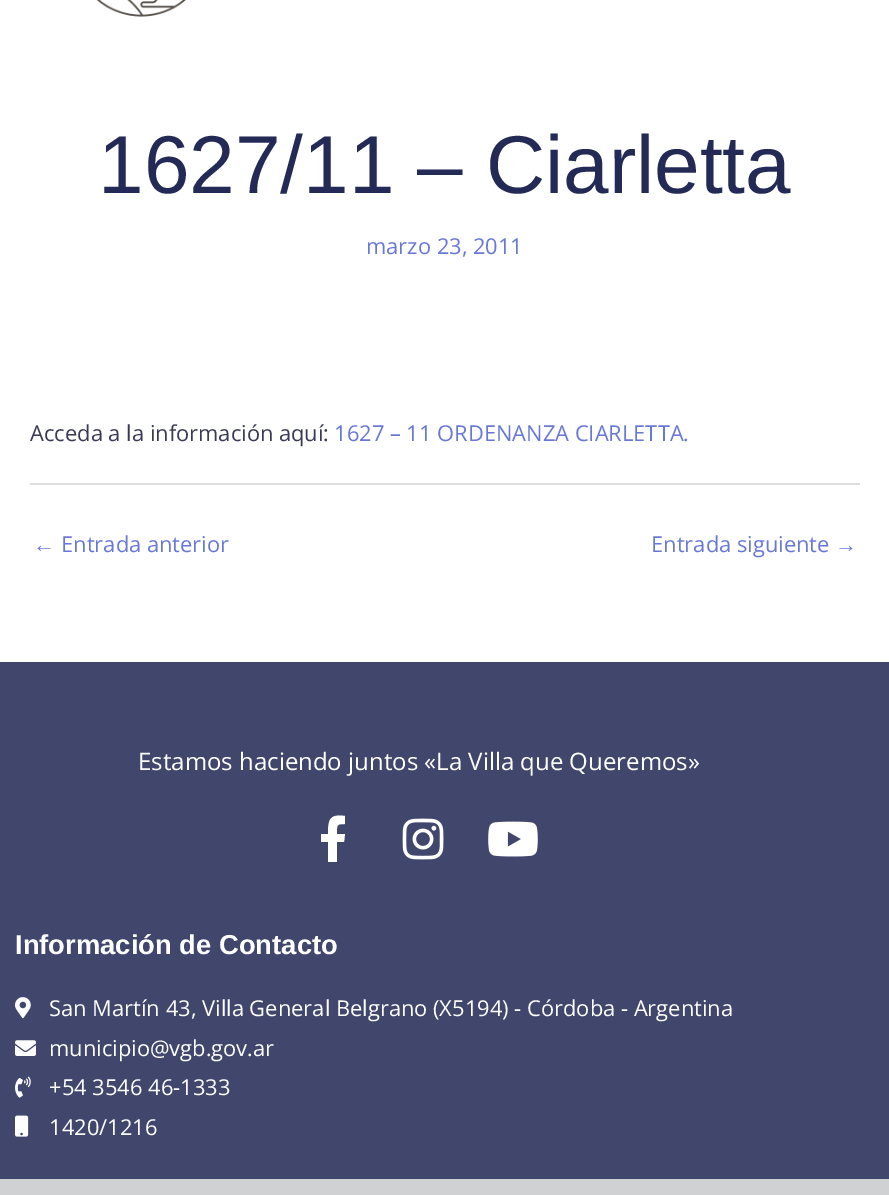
%!PS
<< /PageSize [889 1195] >> setpagedevice
/rgb { 3 { 255 div 3 1 roll } repeat setrgbcolor } def
/font { [ exch dup neg 0 0 3 -1 roll 0 0 ] selectfont } def
/text { moveto show } def
/picture { 5 dict begin { /h /w /y /x /name } { exch def } forall
  gsave x y translate w h scale
  w h 8 [w 0 0 h 0 0] name (r) file false 3 colorimage grestore end } def
0 1195 translate 1 -1 scale
4 setmiterlimit
255 255 255 rgb
0 0 889 1195 rectfill
(img_01.rgb) 96 0 90 17 picture
221 221 221 rgb
30 483 830 2 rectfill
65 70 108 rgb
0 662 889 517 rectfill
255 255 255 rgb
344 842 moveto -7 0 rlineto 0 20 rlineto -9 0 rlineto 0 -20 rlineto -7 0 rlineto 0 -8 rlineto 7 0 rlineto 0 -15 2 -20 17 -18 rcurveto 0 8 rlineto -9 0 -8 1 -8 10 rcurveto 8 0 rlineto closepath fill
(img_02.rgb) 402 818 42 42 picture
(img_03.rgb) 488 821 50 36 picture
(img_04.rgb) 15 997 16 22 picture
(img_05.rgb) 15 1040 21 16 picture
(img_06.rgb) 15 1076 16 22 picture
(img_07.rgb) 15 1115 14 22 picture
207 209 210 rgb
0 1179 889 16 rectfill
/LiberationSans-Regular 82 font
36 42 86 rgb
(1627/11 – Ciarletta) 98 193 text
/OpenSans-Regular 21.9 font
104 120 214 rgb
(marzo 23, 2011) 366 254 text
57 58 86 rgb
(Acceda a la información aquí:) 30 441 text
104 120 214 rgb
(1627 – 11 ORDENANZA CIARLETTA.) 334 441 text
/LiberationSans-Regular 21.9 font
(←) 33 552 text
/OpenSans-Regular 21.9 font
(Entrada anterior) 61 552 text
(Entrada siguiente) 651 552 text
/LiberationSans-Regular 21.9 font
(→) 835 552 text
/OpenSans-Regular 24 font
255 255 255 rgb
(Estamos haciendo juntos «La Villa que Queremos») 138 770 text
/LiberationSans-Bold 27.4 font
(Información de Contacto) 15 954 text
/OpenSans-Regular 21.9 font
(San Martín 43, Villa General Belgrano \(X5194\) - Córdoba - Argentina) 49 1016 text
(municipio@vgb.gov.ar) 49 1056 text
(+54 3546 46-1333) 49 1095 text
(1420/1216) 49 1135 text
showpage
